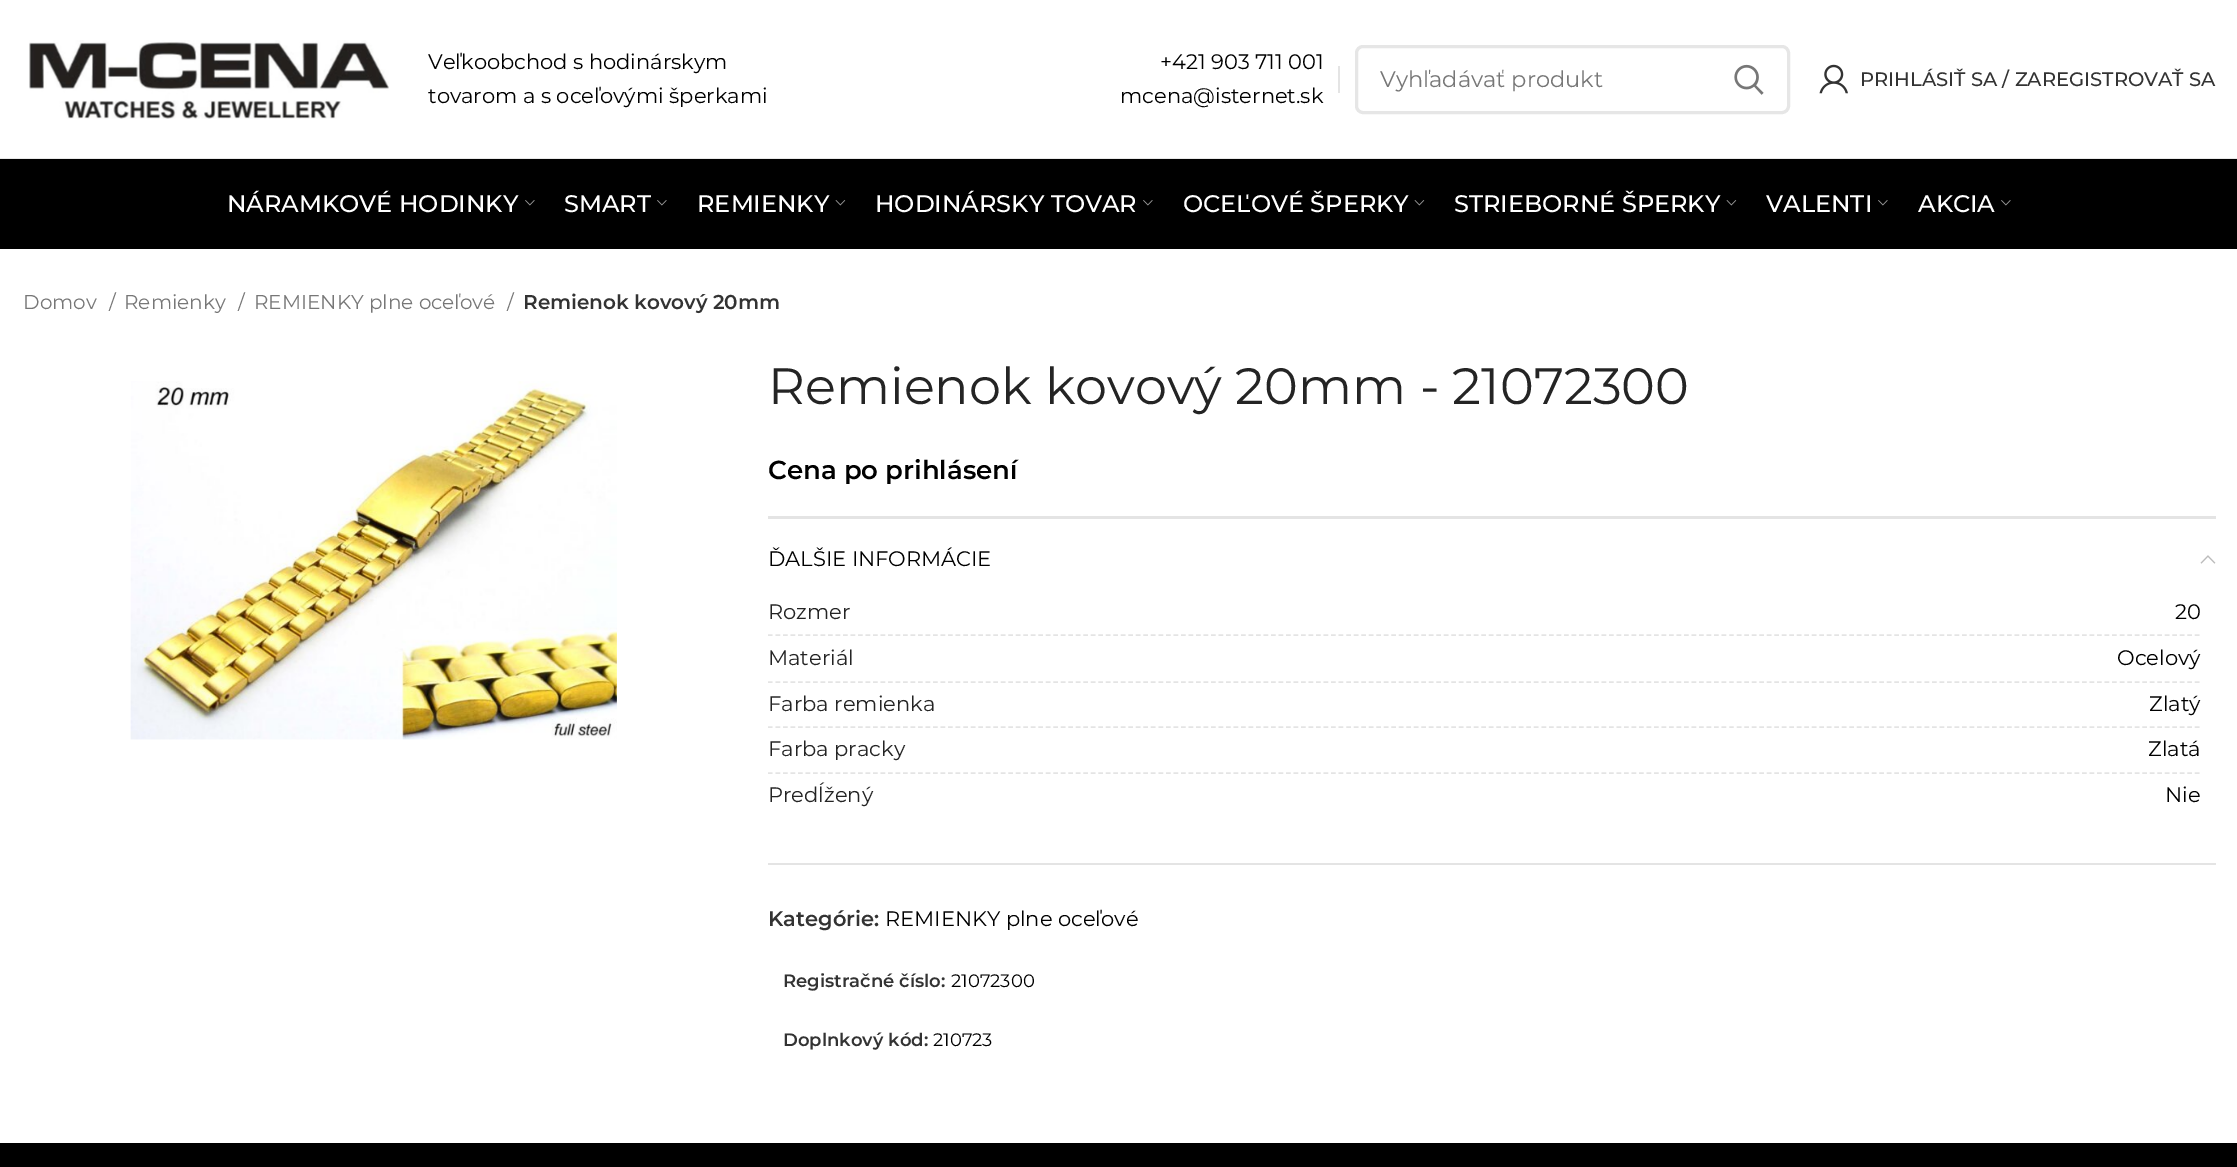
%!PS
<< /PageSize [2237 1167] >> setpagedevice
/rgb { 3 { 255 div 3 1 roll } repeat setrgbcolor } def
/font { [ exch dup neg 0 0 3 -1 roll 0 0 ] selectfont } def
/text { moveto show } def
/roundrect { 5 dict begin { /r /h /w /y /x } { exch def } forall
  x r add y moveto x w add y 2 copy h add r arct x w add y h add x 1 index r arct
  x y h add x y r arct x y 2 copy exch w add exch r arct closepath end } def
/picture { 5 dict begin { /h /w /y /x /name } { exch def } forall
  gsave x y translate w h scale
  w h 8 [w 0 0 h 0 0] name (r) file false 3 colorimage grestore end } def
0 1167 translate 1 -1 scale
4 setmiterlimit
255 255 255 rgb
0 0 2237 1167 rectfill
232 232 232 rgb
0 158 2237 1 rectfill
(img_01.rgb) 29 40 360 79 picture
228 228 228 rgb
1338 66 2 27 rectfill
230 230 230 rgb
3 setlinewidth
1356.5 46.5 432 66 6.5 roundrect stroke
(img_02.rgb) 1734 64 30 31 picture
(img_03.rgb) 1819 64 29 30 picture
0 0 0 rgb
0 159 2237 90 rectfill
(img_04.rgb) 525 200 10 6 picture
(img_04.rgb) 657 200 10 6 picture
(img_05.rgb) 835 200 11 6 picture
(img_04.rgb) 1143 200 10 6 picture
(img_05.rgb) 1414 200 11 6 picture
(img_05.rgb) 1726 200 11 6 picture
(img_04.rgb) 1878 200 10 6 picture
(img_04.rgb) 2001 200 10 6 picture
(img_06.rgb) 130 381 487 359 picture
228 228 228 rgb
768 516 1448 3 rectfill
768 863 1448 2 rectfill
(img_07.rgb) 2200 555 16 9 picture
1.5 setlinewidth
[4.5 3.01] 0 setdash
768 635 moveto 1432.5 0 rlineto stroke
768 682 moveto 1432.5 0 rlineto stroke
768 727 moveto 1432.5 0 rlineto stroke
768 773 moveto 1432.5 0 rlineto stroke
0 0 0 rgb
0 1143 2237 24 rectfill
/Montserrat-Regular 21 font
(Veľkoobchod s hodinárskym) 428 69 text
(tovarom a s oceľovými šperkami) 428 103 text
(+421 903 711 001) 1160 69 text
(mcena@isternet.sk) 1120 103 text
/Montserrat-Regular 22.5 font
119 119 119 rgb
(Vyhľadávať produkt) 1380 87 text
/Montserrat-Medium 19.5 font
51 51 51 rgb
(PRIHLÁSIŤ SA / ZAREGISTROVAŤ SA) 1860 86 text
/Montserrat-Medium 24 font
255 255 255 rgb
(NÁRAMKOVÉ HODINKY) 227 212 text
(SMART) 564 212 text
(REMIENKY) 697 212 text
(HODINÁRSKY TOVAR) 875 212 text
(OCEĽOVÉ ŠPERKY) 1183 212 text
(STRIEBORNÉ ŠPERKY) 1454 212 text
(VALENTI) 1766 212 text
(AKCIA) 1918 212 text
/Montserrat-Regular 20 font
119 119 119 rgb
(Domov) 23 309 text
(/) 109 309 text
(Remienky) 124 309 text
(/) 238 309 text
(REMIENKY plne oceľové) 254 309 text
(/) 507 309 text
/Montserrat-SemiBold 20 font
51 51 51 rgb
(Remienok kovový 20mm) 523 309 text
/Montserrat-Regular 51 font
36 36 36 rgb
(Remienok kovový 20mm - 21072300) 768 404 text
/Montserrat-SemiBold 26 font
0 0 0 rgb
(Cena po prihlásení) 768 479 text
/Montserrat-Regular 21 font
(ĎALŠIE INFORMÁCIE) 768 566 text
36 36 36 rgb
(Rozmer) 768 619 text
0 0 0 rgb
(20) 2175 619 text
36 36 36 rgb
(Materiál) 768 665 text
0 0 0 rgb
(Ocelový) 2117 665 text
36 36 36 rgb
(Farba remienka) 768 711 text
0 0 0 rgb
(Zlatý) 2149 711 text
36 36 36 rgb
(Farba pracky) 768 756 text
0 0 0 rgb
(Zlatá) 2148 756 text
36 36 36 rgb
(Predĺžený) 768 802 text
0 0 0 rgb
(Nie) 2165 802 text
/Montserrat-SemiBold 21 font
51 51 51 rgb
(Kategórie:) 768 926 text
/Montserrat-Regular 21 font
0 0 0 rgb
(REMIENKY plne oceľové) 885 926 text
/Montserrat-SemiBold 18 font
51 51 51 rgb
(Registračné číslo:) 783 987 text
/Montserrat-Regular 18 font
0 0 0 rgb
(21072300) 951 987 text
/Montserrat-SemiBold 18 font
51 51 51 rgb
(Doplnkový kód:) 783 1046 text
/Montserrat-Regular 18 font
0 0 0 rgb
(210723) 933 1046 text
showpage
